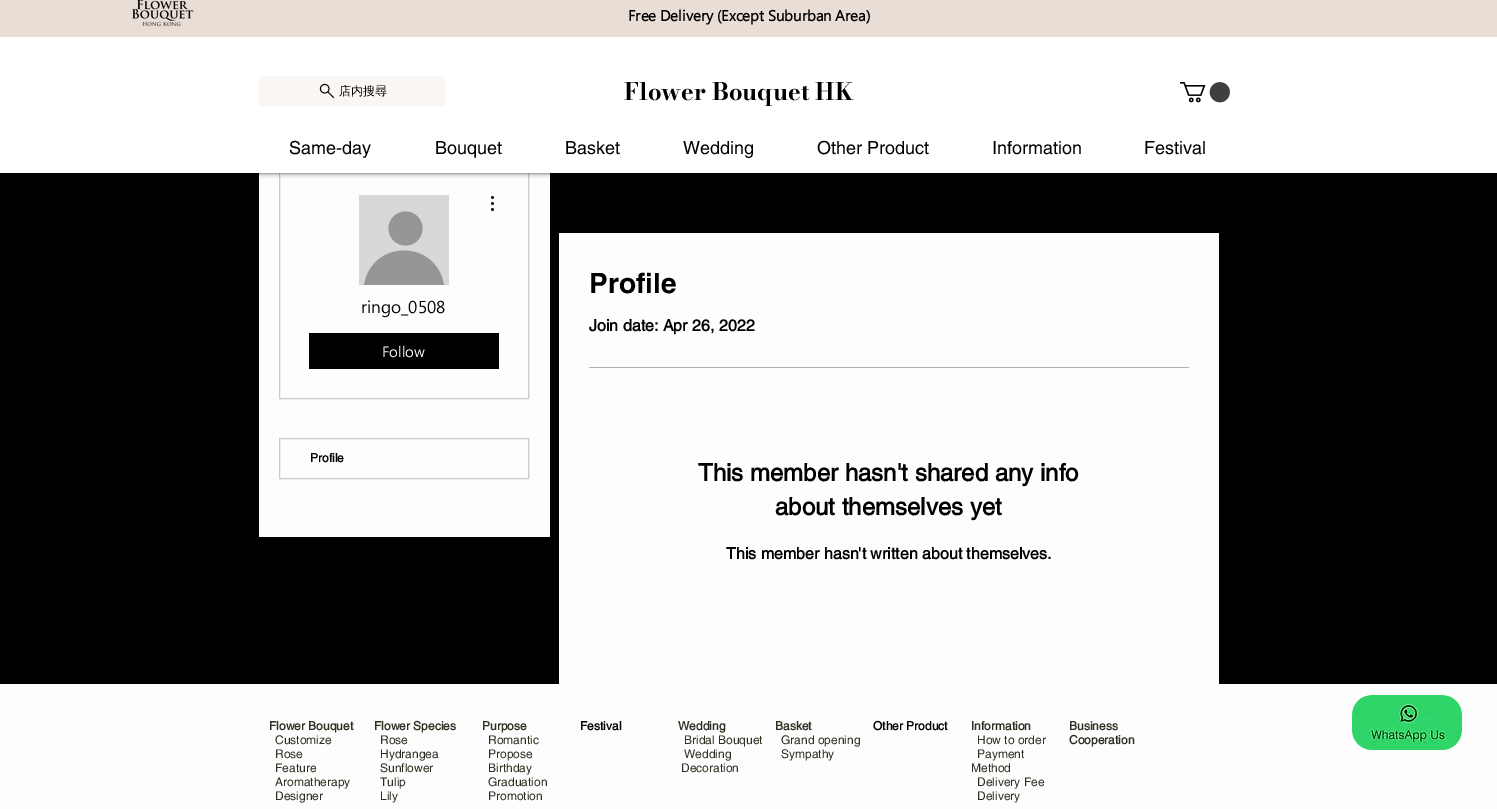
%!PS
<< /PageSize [1497 809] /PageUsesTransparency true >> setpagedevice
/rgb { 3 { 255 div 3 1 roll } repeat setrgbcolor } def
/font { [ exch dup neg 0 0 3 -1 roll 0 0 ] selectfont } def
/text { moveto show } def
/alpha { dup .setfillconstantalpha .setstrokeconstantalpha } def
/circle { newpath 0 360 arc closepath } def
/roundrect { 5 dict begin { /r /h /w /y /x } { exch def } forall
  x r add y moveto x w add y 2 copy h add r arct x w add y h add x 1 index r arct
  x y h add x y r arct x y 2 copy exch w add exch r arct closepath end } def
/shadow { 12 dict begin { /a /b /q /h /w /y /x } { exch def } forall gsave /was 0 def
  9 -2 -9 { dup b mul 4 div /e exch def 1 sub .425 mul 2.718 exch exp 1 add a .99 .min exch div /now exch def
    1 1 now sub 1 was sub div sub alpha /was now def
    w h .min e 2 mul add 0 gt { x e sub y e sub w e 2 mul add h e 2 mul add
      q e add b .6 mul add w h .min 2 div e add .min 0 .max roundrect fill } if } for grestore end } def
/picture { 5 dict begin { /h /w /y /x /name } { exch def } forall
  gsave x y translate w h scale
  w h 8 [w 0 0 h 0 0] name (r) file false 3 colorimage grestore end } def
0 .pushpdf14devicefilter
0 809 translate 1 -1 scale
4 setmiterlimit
0 0 0 rgb
0 0 1497 809 rectfill
253 253 253 rgb
259 173 291 364 rectfill
202 202 202 rgb
279.5 165.5 249 233 rectstroke
0 0 0 rgb
0 0 1497 173 0 2.5 0.7 shadow
255 255 255 rgb
0 37 1497 136 rectfill
233 222 213 rgb
0 0 1497 37 rectfill
(img_01.rgb) 132 0 62 27 picture
249 246 243 rgb
259 76 186 30 rectfill
(img_02.rgb) 319 83 16 16 picture
(img_03.rgb) 1180 82 50 21 picture
216 216 216 rgb
359 195 90 90 rectfill
150 150 150 rgb
405.5 228.5 17 circle fill
444 285 moveto -8 -46 -72 -46 -80 0 rcurveto closepath fill
(img_04.rgb) 491 196 3 15 picture
0 0 0 rgb
309 333 190 36 rectfill
202 202 202 rgb
279.5 438.5 249 40 rectstroke
253 253 253 rgb
559 233 660 451 rectfill
177 177 177 rgb
589 367 600 1 rectfill
253 253 253 rgb
0 684 1497 125 rectfill
(img_05.rgb) 1352 695 110 55 picture
/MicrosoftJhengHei-Bold 14 font
0 0 0 rgb
(Free Delivery \(Except Suburban Area\)) 628 21 text
/WenQuanYiZenHei-Medium 12 font
(店内搜尋) 339 95 text
/BodoniModa-Bold 24 font
(Flower Bouquet HK) 624 100 text
/helvetica-Regular 18 font
(Same-day) 289 154 text
(Bouquet) 435 154 text
(Basket) 565 154 text
(Wedding) 683 154 text
(Other Product) 817 154 text
(Information) 992 154 text
(Festival) 1144 154 text
/MicrosoftJhengHei-Regular 16 font
(ringo_0508) 361 313 text
/MicrosoftJhengHei-Regular 14 font
253 253 253 rgb
(Follow) 382 357 text
/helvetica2-Bold 12 font
0 0 0 rgb
(Profile) 310 462 text
/helvetica-Bold 28 font
(Profile) 589 293 text
/helvetica2-Bold 16 font
(Join date: Apr 26, 2022) 589 331 text
/helvetica2-Bold 24 font
(This member hasn't shared any info) 698 481 text
(about themselves yet) 775 515 text
/helvetica2-Bold 16 font
(This member hasn't written about themselves.) 726 559 text
/helvetica2-Bold 12 font
46 47 33 rgb
(Flower Bouquet) 269 730 text
/helvetica-Regular 12 font
(Customize) 275 744 text
(Rose) 275 758 text
(Feature) 275 772 text
(Aromatherapy) 275 786 text
(Designer) 275 800 text
/helvetica2-Bold 12 font
(Flower Species) 374 730 text
/helvetica-Regular 12 font
(Rose) 380 744 text
(Hydrangea) 380 758 text
(Sunflower) 380 772 text
(Tulip) 380 786 text
(Lily) 380 800 text
/helvetica2-Bold 12 font
(Purpose) 482 730 text
/helvetica-Regular 12 font
(Romantic) 488 744 text
(Propose) 488 758 text
(Birthday) 488 772 text
(Graduation) 488 786 text
(Promotion) 488 800 text
/helvetica2-Bold 12 font
0 0 0 rgb
(Festival) 580 730 text
46 47 33 rgb
(Wedding) 678 730 text
/helvetica-Regular 12 font
(Bridal Bouquet) 684 744 text
(Wedding) 684 758 text
(Decoration) 681 772 text
/helvetica2-Bold 12 font
(Basket) 775 730 text
/helvetica-Regular 12 font
(Grand opening) 781 744 text
(Sympathy) 781 758 text
/helvetica2-Bold 12 font
0 0 0 rgb
(Other Product) 873 730 text
46 47 33 rgb
(Information) 971 730 text
/helvetica-Regular 12 font
(How to order) 977 744 text
(Payment) 977 758 text
(Method) 971 772 text
(Delivery Fee) 977 786 text
(Delivery) 977 800 text
/helvetica2-Bold 12 font
(Business) 1069 730 text
(Cooperation) 1069 744 text
.poppdf14devicefilter showpage
